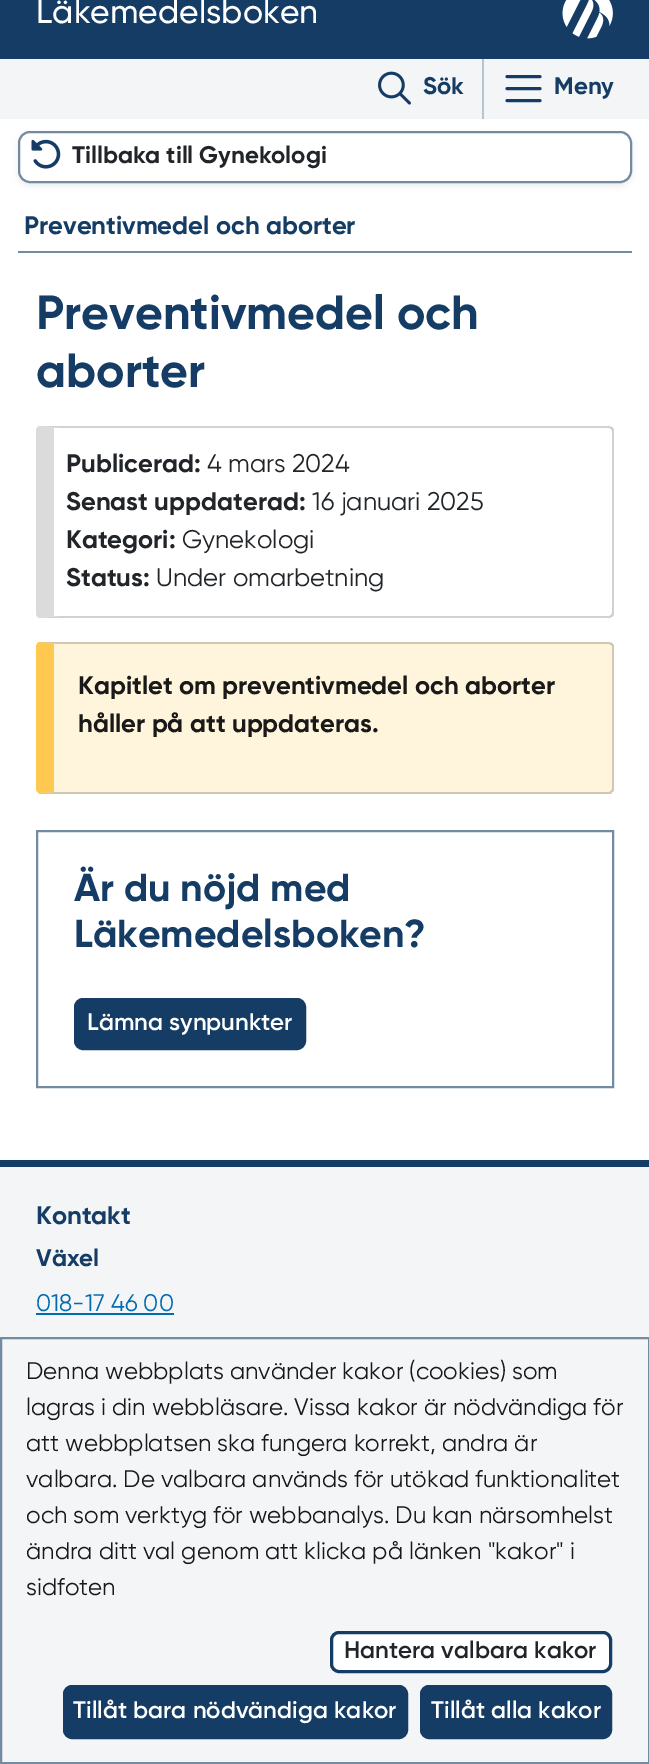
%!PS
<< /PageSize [649 1764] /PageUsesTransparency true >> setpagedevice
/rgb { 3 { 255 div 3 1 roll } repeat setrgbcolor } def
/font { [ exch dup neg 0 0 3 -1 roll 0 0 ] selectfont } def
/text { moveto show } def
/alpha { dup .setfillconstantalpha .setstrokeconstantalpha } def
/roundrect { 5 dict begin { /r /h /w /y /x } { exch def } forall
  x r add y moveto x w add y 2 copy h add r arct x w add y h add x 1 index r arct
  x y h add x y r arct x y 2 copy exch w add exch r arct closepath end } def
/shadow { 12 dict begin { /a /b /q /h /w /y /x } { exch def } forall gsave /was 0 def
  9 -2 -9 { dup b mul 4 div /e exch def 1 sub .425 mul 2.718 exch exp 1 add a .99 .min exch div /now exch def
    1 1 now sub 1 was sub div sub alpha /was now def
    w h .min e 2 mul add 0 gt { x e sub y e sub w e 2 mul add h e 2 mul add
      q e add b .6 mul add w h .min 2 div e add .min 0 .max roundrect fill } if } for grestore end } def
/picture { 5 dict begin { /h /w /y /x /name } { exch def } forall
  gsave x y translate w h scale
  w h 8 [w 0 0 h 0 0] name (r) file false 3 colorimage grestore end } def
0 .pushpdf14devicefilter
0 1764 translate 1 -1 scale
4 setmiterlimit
255 255 255 rgb
0 0 649 1764 rectfill
20 60 100 rgb
0 0 649 59 rectfill
(img_01.rgb) 562 0 51 39 picture
243 245 247 rgb
0 59 649 60 rectfill
184 196 208 rgb
482 59 2 60 rectfill
(img_02.rgb) 378 71 33 34 picture
20 60 100 rgb
3 setlinewidth
1 setlinecap
507 76.5 moveto 33 0 rlineto 507 88.5 moveto 33 0 rlineto 507 100.5 moveto 33 0 rlineto stroke
243 245 247 rgb
1 1338 moveto 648 0 rlineto 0 425 rlineto -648 0 rlineto closepath gsave fill grestore
114 138 162 rgb
2 setlinewidth
0 setlinecap
stroke
255 255 255 rgb
331.5 1632.5 279 39 7.5 roundrect gsave fill grestore
20 60 100 rgb
3 setlinewidth
stroke
64 1686 343 52 8 roundrect gsave fill grestore
2 setlinewidth
stroke
421 1686 190 52 8 roundrect gsave fill grestore
stroke
gsave
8 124 moveto 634 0 rlineto 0 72 rlineto -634 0 rlineto closepath 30 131 moveto 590 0 rlineto 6.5 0 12 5.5 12 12 rcurveto 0 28 rlineto 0 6.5 -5.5 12 -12 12 rcurveto -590 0 rlineto -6.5 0 -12 -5.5 -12 -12 rcurveto 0 -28 rlineto 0 -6.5 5.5 -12 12 -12 rcurveto closepath eoclip newpath
0 0 0 rgb
18 134 614 52 12 3 0.07 shadow
grestore
114 138 162 rgb
19 132 612 50 11 roundrect stroke
(img_03.rgb) 31 139 30 30 picture
18 251 614 2 rectfill
210 210 210 rgb
41 426 moveto -2 0 rlineto 21 2 rlineto 549 0 rlineto 2 1 rlineto 1 -2 rlineto -3 -1 rlineto closepath fill
0.18 alpha
0 0 0 rgb
614 615 moveto -2 2 rlineto -1 -2 rlineto 1 -2 rlineto 0 -182 rlineto -1 -2 rlineto 1 -2 rlineto 2 2 rlineto closepath fill
41 618 moveto 568 0 rlineto 3 -1 rlineto -1 -2 rlineto -2 1 rlineto -549 0 rlineto -21 2 rlineto closepath fill
1 alpha
219 219 219 rgb
54 428 moveto 6 0 rlineto -21 -2 rlineto -2 1 -3 3 -3 5 rcurveto 0 182 rlineto 0 2 1 4 3 5 rcurveto 21 -2 rlineto -6 0 rlineto closepath fill
255 244 220 rgb
36 642 578 152 5 roundrect fill
0.18 alpha
0 0 0 rgb
41 642 moveto -2 0 rlineto 21 2 rlineto 549 0 rlineto 2 1 rlineto 1 -2 rlineto -3 -1 rlineto closepath fill
614 791 moveto -2 1 rlineto -1 -1 rlineto 1 -2 rlineto 0 -142 rlineto 0 -1 0 -2 -1 -2 rcurveto 1 -2 rlineto 2 2 rlineto closepath fill
39 794 moveto 0 -1 rlineto 15 -1 rlineto 555 0 rlineto 2 -1 rlineto 1 1 rlineto -1 2 rlineto closepath fill
1 alpha
255 200 80 rgb
54 644 moveto 6 0 rlineto -21 -2 rlineto -2 1 -3 3 -3 5 rcurveto 0 142 rlineto 0 1 1 3 3 4 rcurveto 15 -1 rlineto closepath fill
114 138 162 rgb
37 831 576 256 rectstroke
20 60 100 rgb
75 999 230 50 8 roundrect gsave fill grestore
stroke
243 245 247 rgb
0 1167 649 170 rectfill
20 60 100 rgb
0 1160 649 7 rectfill
0 107 173 rgb
36 1313 138 2 rectfill
/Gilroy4-Regular 33.5 font
255 255 255 rgb
(Läkemedelsboken) 36 23 text
/Gilroy-Regular 24 font
20 60 100 rgb
(Sök) 423 94 text
(Meny) 554 94 text
/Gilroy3-Regular 24 font
25 25 25 rgb
(Denna webbplats använder kakor \(cookies\) som) 26 1379 text
(lagras i din webbläsare. Vissa kakor är nödvändiga för) 26 1415 text
(att webbplatsen ska fungera korrekt, andra är) 26 1451 text
(valbara. De valbara används för utökad funktionalitet) 26 1487 text
(och som verktyg för webbanalys. Du kan närsomhelst) 26 1523 text
(ändra ditt val genom att klicka på länken "kakor" i) 26 1559 text
(sidfoten) 26 1595 text
/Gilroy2-Regular 24 font
33 37 41 rgb
(Hantera valbara kakor) 344 1658 text
255 255 255 rgb
(Tillåt bara nödvändiga kakor) 73 1718 text
(Tillåt alla kakor) 431 1718 text
/Gilroy-Regular 24 font
33 37 41 rgb
(Tillbaka till Gynekologi) 72 163 text
/Gilroy-Regular 25.5 font
20 60 100 rgb
(Preventivmedel och aborter) 24 234 text
/Gilroy-Regular 48 font
(Preventivmedel och) 36 329 text
(aborter) 36 387 text
/Gilroy-Regular 25.5 font
33 37 41 rgb
(Publicerad:) 66 472 text
/Gilroy3-Regular 25.5 font
(4 mars 2024) 207 472 text
/Gilroy-Regular 25.5 font
(Senast uppdaterad:) 66 510 text
/Gilroy3-Regular 25.5 font
(16 januari 2025) 312 510 text
/Gilroy-Regular 25.5 font
(Kategori:) 66 548 text
/Gilroy3-Regular 25.5 font
(Gynekologi) 182 548 text
/Gilroy-Regular 25.5 font
(Status:) 66 586 text
/Gilroy3-Regular 25.5 font
(Under omarbetning) 156 586 text
/Gilroy-Regular 25.5 font
25 25 25 rgb
(Kapitlet om preventivmedel och aborter) 78 694 text
(håller på att uppdateras.) 78 732 text
/Gilroy-Regular 39 font
20 60 100 rgb
(Är du nöjd med) 74 901 text
(Läkemedelsboken?) 74 947 text
/Gilroy2-Regular 24 font
255 255 255 rgb
(Lämna synpunkter) 87 1030 text
/Gilroy-Regular 25.5 font
20 60 100 rgb
(Kontakt) 36 1224 text
/Gilroy-Regular 24 font
(Växel) 36 1266 text
/Gilroy3-Regular 24 font
0 107 173 rgb
(018-17 46 00) 36 1311 text
.poppdf14devicefilter showpage
